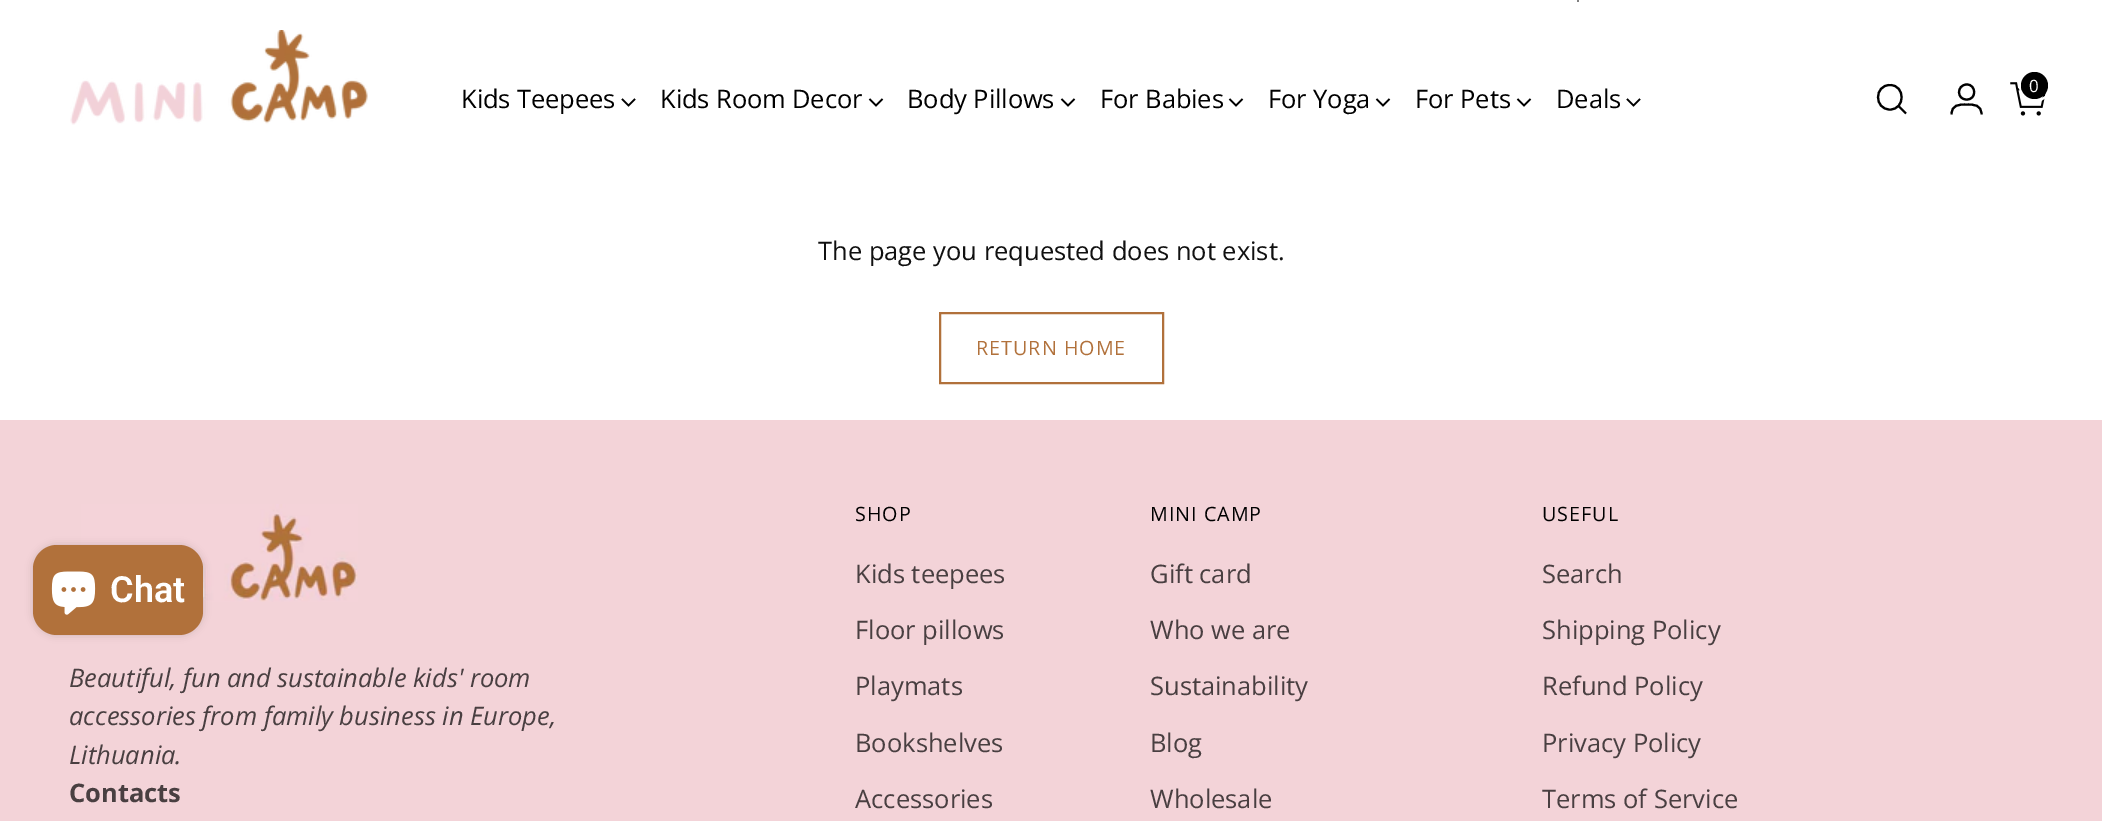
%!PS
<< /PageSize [2102 821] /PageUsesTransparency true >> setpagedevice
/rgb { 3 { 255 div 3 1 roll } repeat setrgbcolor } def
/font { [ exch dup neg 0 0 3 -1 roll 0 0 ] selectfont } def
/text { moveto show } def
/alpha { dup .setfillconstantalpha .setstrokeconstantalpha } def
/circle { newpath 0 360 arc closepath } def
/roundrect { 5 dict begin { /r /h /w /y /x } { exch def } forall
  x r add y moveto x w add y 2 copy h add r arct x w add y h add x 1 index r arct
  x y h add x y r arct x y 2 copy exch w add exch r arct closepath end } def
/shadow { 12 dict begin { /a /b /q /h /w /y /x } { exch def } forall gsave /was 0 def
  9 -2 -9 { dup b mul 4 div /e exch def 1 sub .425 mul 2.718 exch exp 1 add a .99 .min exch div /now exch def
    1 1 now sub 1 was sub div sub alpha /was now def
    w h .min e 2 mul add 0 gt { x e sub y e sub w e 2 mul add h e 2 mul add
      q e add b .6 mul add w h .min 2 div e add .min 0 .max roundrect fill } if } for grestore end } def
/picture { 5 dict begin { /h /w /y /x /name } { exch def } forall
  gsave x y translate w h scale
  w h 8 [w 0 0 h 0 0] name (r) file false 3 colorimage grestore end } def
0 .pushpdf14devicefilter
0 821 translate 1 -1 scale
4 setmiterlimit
255 255 255 rgb
0 0 2102 821 rectfill
128 128 128 rgb
1577 0 2 2 rectfill
(img_01.rgb) 70 30 298 95 picture
0 0 0 rgb
2.1 setlinewidth
1 setlinecap
1890 109.5 moveto 15.5 0 15.5 -24.5 0 -24.5 rcurveto -16 0 -16 24.5 0 24.5 rcurveto closepath stroke
0 setlinecap
1898.5 106 moveto 7.5 7.5 rlineto stroke
1966.5 99.5 moveto 10.5 0.5 10 -15.5 0 -15 rcurveto -10 0.5 -10 15 0 15 rcurveto closepath 1951.5 114.5 moveto 0 -10 7.5 -10 15 -10 rcurveto 7.5 0 15 0 15 10 rcurveto stroke
(img_02.rgb) 2010 82 37 34 picture
255 255 255 rgb
2 setlinewidth
2020 72 30 29 14.5 roundrect stroke
0 0 0 rgb
2034.5 85.5 13.5 circle fill
1.7 setlinewidth
622 99 moveto 6.5 6.5 rlineto 6.5 -6.5 rlineto stroke
869.5 99 moveto 6.5 6.5 rlineto 6.5 -6.5 rlineto stroke
1061.5 99 moveto 6.5 6.5 rlineto 6.5 -6.5 rlineto stroke
1229.5 99 moveto 6.5 6.5 rlineto 6.5 -6.5 rlineto stroke
1376.5 99 moveto 6.5 6.5 rlineto 6.5 -6.5 rlineto stroke
1517.5 99 moveto 6.5 6.5 rlineto 6.5 -6.5 rlineto stroke
1627 99 moveto 6.5 6.5 rlineto 6.5 -6.5 rlineto stroke
177 113 59 rgb
2 setlinewidth
940 313 223 70 rectstroke
243 211 216 rgb
0 420 2102 401 rectfill
(img_03.rgb) 81 504 277 98 picture
0 0 0 rgb
33 545 170 90 24 4 0.15 shadow
177 113 59 rgb
33 545 170 90 24 roundrect fill
(img_04.rgb) 51 571 45 44 picture
/OpenSans-Regular 17 font
255 255 255 rgb
(0) 2029 92 text
/OpenSans-Regular 25.5 font
0 0 0 rgb
461 108 moveto -0.1 0 (Kids Teepees) ashow
660 108 moveto -0.1 0 (Kids Room Decor) ashow
907 108 moveto -0.1 0 (Body Pillows) ashow
1100 108 moveto -0.1 0 (For Babies) ashow
1268 108 moveto -0.1 0 (For Yoga) ashow
1415 108 moveto -0.1 0 (For Pets) ashow
1556 108 moveto -0.1 0 (Deals) ashow
17 17 17 rgb
(The page you requested does not exist.) 818 260 text
/OpenSans-Regular 19.75 font
177 113 59 rgb
976 355 moveto 1 0 (RETURN HOME) ashow
/OpenSans-Italic 25.5 font
73 63 65 rgb
(Beautiful, fun and sustainable kids' room) 69 687 text
(accessories from family business in Europe,) 69 725 text
(Lithuania.) 69 764 text
/OpenSans-Bold 25.5 font
(Contacts) 69 802 text
/OpenSans-Regular 19.75 font
0 0 0 rgb
855 521 moveto 1 0 (SHOP) ashow
/OpenSans-Regular 25.5 font
73 63 65 rgb
(Kids teepees) 855 583 text
(Floor pillows) 855 639 text
(Playmats) 855 695 text
(Bookshelves) 855 752 text
(Accessories) 855 808 text
/OpenSans-Regular 19.75 font
0 0 0 rgb
1150 521 moveto 1 0 (MINI CAMP) ashow
/OpenSans-Regular 25.5 font
73 63 65 rgb
(Gift card) 1150 583 text
(Who we are) 1150 639 text
(Sustainability) 1150 695 text
(Blog) 1150 752 text
(Wholesale) 1150 808 text
/OpenSans-Regular 19.75 font
0 0 0 rgb
1542 521 moveto 1 0 (USEFUL) ashow
/OpenSans-Regular 25.5 font
73 63 65 rgb
(Search) 1542 583 text
(Shipping Policy) 1542 639 text
(Refund Policy) 1542 695 text
(Privacy Policy) 1542 752 text
(Terms of Service) 1542 808 text
/Roboto-SemiBold 36 font
255 255 255 rgb
(Chat) 110 602 text
.poppdf14devicefilter showpage
